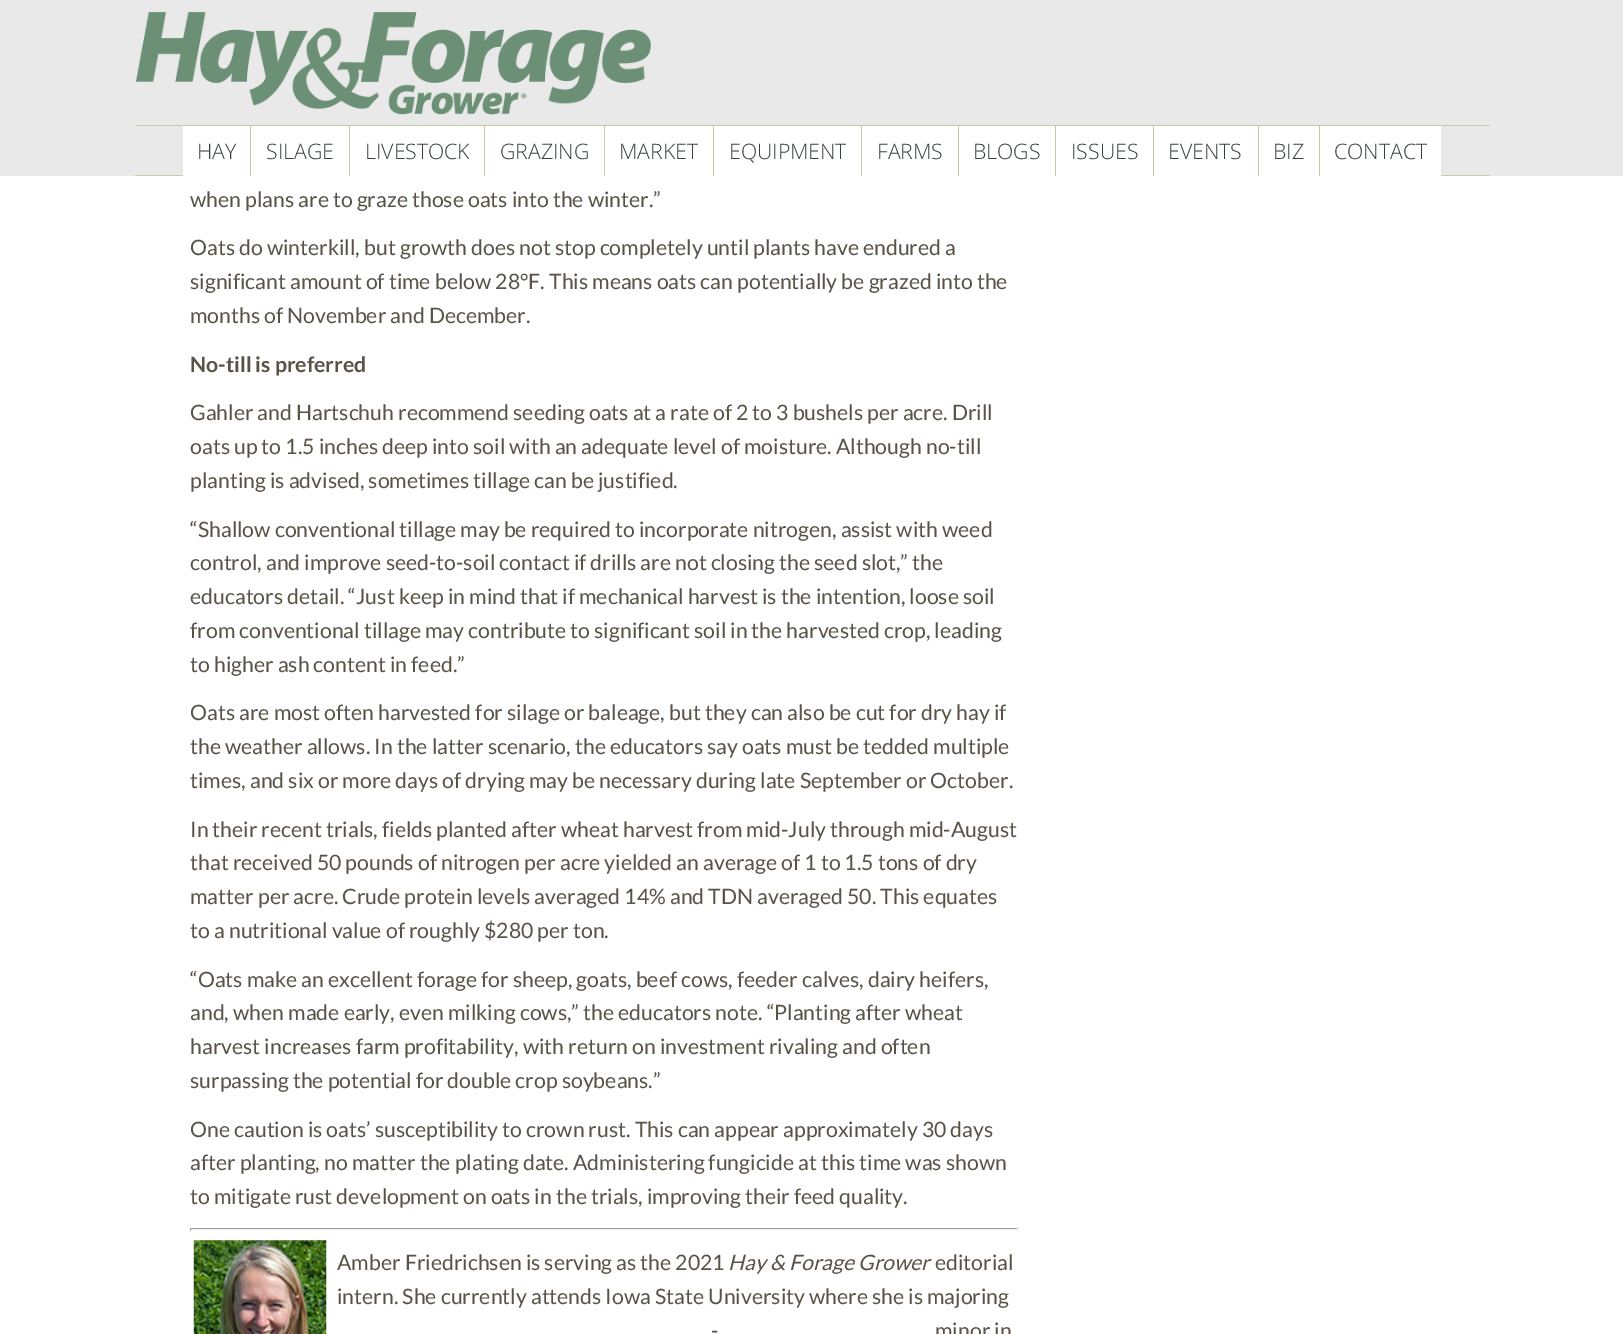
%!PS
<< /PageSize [1623 1334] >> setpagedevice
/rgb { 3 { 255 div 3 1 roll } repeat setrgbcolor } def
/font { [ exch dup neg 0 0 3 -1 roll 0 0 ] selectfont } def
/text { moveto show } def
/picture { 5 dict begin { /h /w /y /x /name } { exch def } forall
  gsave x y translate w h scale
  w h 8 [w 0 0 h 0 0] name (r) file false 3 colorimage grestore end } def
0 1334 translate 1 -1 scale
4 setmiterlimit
255 255 255 rgb
0 0 1623 1334 rectfill
233 233 233 rgb
0 0 1623 176 rectfill
201 204 169 rgb
135 175 1355 1 rectfill
(img_01.rgb) 136 12 515 103 picture
135 125 1355 1 rectfill
255 255 255 rgb
183 126 67 50 rectfill
199 204 168 rgb
250 126 1 50 rectfill
255 255 255 rgb
251 126 98 50 rectfill
199 204 168 rgb
349 126 1 50 rectfill
255 255 255 rgb
350 126 134 50 rectfill
199 204 168 rgb
484 126 1 50 rectfill
255 255 255 rgb
485 126 119 50 rectfill
199 204 168 rgb
604 126 1 50 rectfill
255 255 255 rgb
605 126 108 50 rectfill
199 204 168 rgb
713 126 1 50 rectfill
255 255 255 rgb
714 126 244 50 rectfill
199 204 168 rgb
861 126 1 50 rectfill
958 126 1 50 rectfill
255 255 255 rgb
959 126 96 50 rectfill
199 204 168 rgb
1055 126 1 50 rectfill
255 255 255 rgb
1056 126 97 50 rectfill
199 204 168 rgb
1153 126 1 50 rectfill
255 255 255 rgb
1154 126 104 50 rectfill
199 204 168 rgb
1258 126 1 50 rectfill
255 255 255 rgb
1259 126 60 50 rectfill
199 204 168 rgb
1319 126 1 50 rectfill
255 255 255 rgb
1320 126 121 50 rectfill
159 159 159 rgb
190 1228 828 1 rectfill
238 238 238 rgb
1016 1228 1 3 rectfill
190 1229 828 1 rectfill
159 159 159 rgb
190 1228 1 3 rectfill
(img_02.rgb) 193 1240 134 94 picture
/OpenSans-Light 21.25 font
57 63 62 rgb
(HAY) 197 159 text
(SILAGE) 266 159 text
(LIVESTOCK) 365 159 text
(GRAZING) 500 159 text
(MARKET) 619 159 text
(EQUIPMENT) 729 159 text
(FARMS) 877 159 text
(BLOGS) 973 159 text
(ISSUES) 1071 159 text
(EVENTS) 1168 159 text
(BIZ) 1273 159 text
(CONTACT) 1334 159 text
/Lato-Regular 21.25 font
89 82 70 rgb
(when plans are to graze those oats into the winter.”) 190 207 text
(Oats do winterkill, but growth does not stop completely until plants have endured a) 190 255 text
(significant amount of time below 28°F. This means oats can potentially be grazed into the) 190 289 text
(months of November and December.) 190 323 text
/Lato-Bold 21.25 font
(No-till is preferred) 190 372 text
/Lato-Regular 21.25 font
(Gahler and Hartschuh recommend seeding oats at a rate of 2 to 3 bushels per acre. Drill) 190 420 text
(oats up to 1.5 inches deep into soil with an adequate level of moisture. Although no-till) 190 454 text
(planting is advised, sometimes tillage can be justified.) 190 488 text
(“Shallow conventional tillage may be required to incorporate nitrogen, assist with weed) 190 537 text
(control, and improve seed-to-soil contact if drills are not closing the seed slot,” the) 190 570 text
(educators detail. “Just keep in mind that if mechanical harvest is the intention, loose soil) 190 604 text
(from conventional tillage may contribute to significant soil in the harvested crop, leading) 190 638 text
(to higher ash content in feed.”) 190 672 text
(Oats are most often harvested for silage or baleage, but they can also be cut for dry hay if) 190 720 text
(the weather allows. In the latter scenario, the educators say oats must be tedded multiple) 190 754 text
(times, and six or more days of drying may be necessary during late September or October.) 190 788 text
(In their recent trials, fields planted after wheat harvest from mid-July through mid-August) 190 837 text
(that received 50 pounds of nitrogen per acre yielded an average of 1 to 1.5 tons of dry) 190 870 text
(matter per acre. Crude protein levels averaged 14% and TDN averaged 50. This equates) 190 904 text
(to a nutritional value of roughly $280 per ton.) 190 938 text
(“Oats make an excellent forage for sheep, goats, beef cows, feeder calves, dairy heifers,) 190 987 text
(and, when made early, even milking cows,” the educators note. “Planting after wheat) 190 1020 text
(harvest increases farm profitability, with return on investment rivaling and often) 190 1054 text
(surpassing the potential for double crop soybeans.”) 190 1088 text
(One caution is oats’ susceptibility to crown rust. This can appear approximately 30 days) 190 1137 text
(after planting, no matter the plating date. Administering fungicide at this time was shown) 190 1170 text
(to mitigate rust development on oats in the trials, improving their feed quality.) 190 1204 text
(Amber Friedrichsen is serving as the 2021) 337 1270 text
/Lato-Italic 21.25 font
(Hay & Forage Grower) 728 1270 text
/Lato-Regular 21.25 font
(editorial) 935 1270 text
(intern. She currently attends Iowa State University where she is majoring) 337 1304 text
(-) 711 1338 text
(minor in) 935 1338 text
showpage
